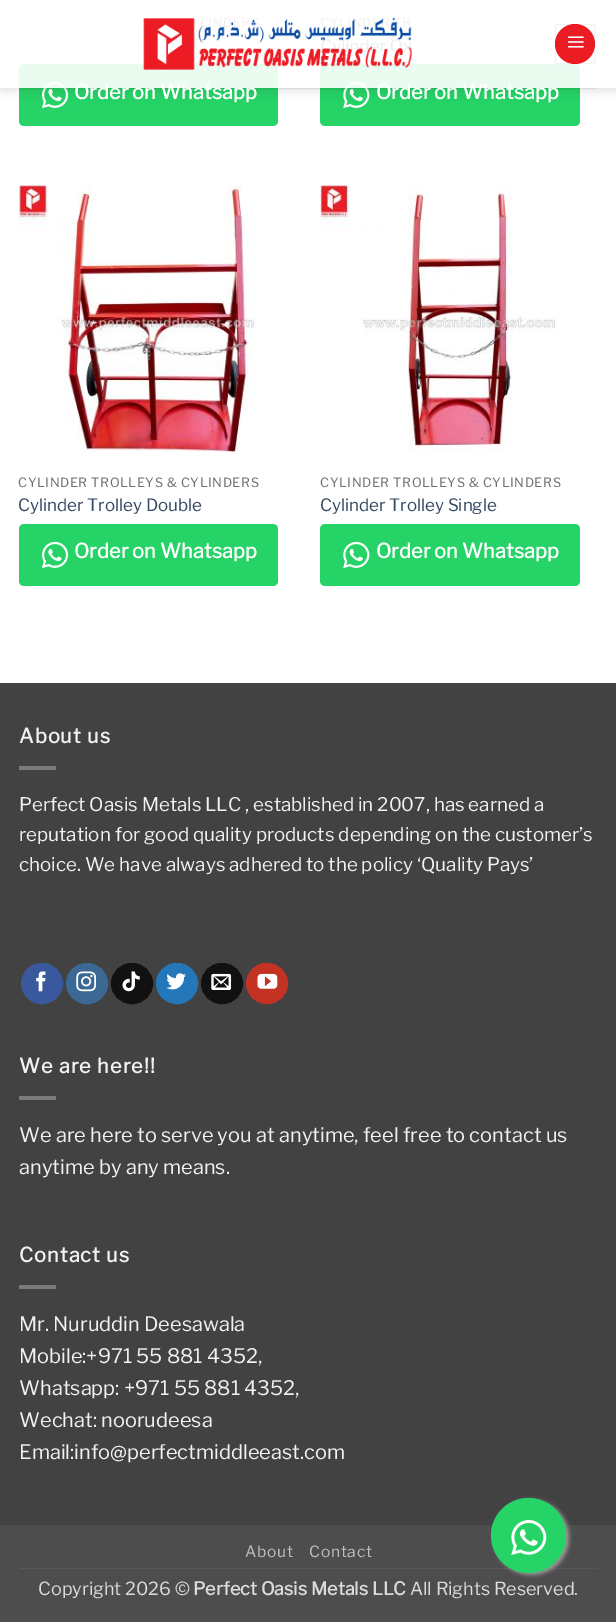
%!PS
<< /PageSize [616 1622] /PageUsesTransparency true >> setpagedevice
/rgb { 3 { 255 div 3 1 roll } repeat setrgbcolor } def
/font { [ exch dup neg 0 0 3 -1 roll 0 0 ] selectfont } def
/text { moveto show } def
/alpha { dup .setfillconstantalpha .setstrokeconstantalpha } def
/circle { newpath 0 360 arc closepath } def
/roundrect { 5 dict begin { /r /h /w /y /x } { exch def } forall
  x r add y moveto x w add y 2 copy h add r arct x w add y h add x 1 index r arct
  x y h add x y r arct x y 2 copy exch w add exch r arct closepath end } def
/shadow { 12 dict begin { /a /b /q /h /w /y /x } { exch def } forall gsave /was 0 def
  9 -2 -9 { dup b mul 4 div /e exch def 1 sub .425 mul 2.718 exch exp 1 add a .99 .min exch div /now exch def
    1 1 now sub 1 was sub div sub alpha /was now def
    w h .min e 2 mul add 0 gt { x e sub y e sub w e 2 mul add h e 2 mul add
      q e add b .6 mul add w h .min 2 div e add .min 0 .max roundrect fill } if } for grestore end } def
/picture { 5 dict begin { /h /w /y /x /name } { exch def } forall
  gsave x y translate w h scale
  w h 8 [w 0 0 h 0 0] name (r) file false 3 colorimage grestore end } def
0 .pushpdf14devicefilter
0 1622 translate 1 -1 scale
4 setmiterlimit
255 255 255 rgb
0 0 616 1622 rectfill
37 211 102 rgb
19 64 259 62 5 roundrect fill
(img_03.rgb) 42 81 27 27 picture
320 64 260 62 5 roundrect fill
(img_04.rgb) 343 81 27 28 picture
gsave
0 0 moveto 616 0 rlineto 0 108 rlineto -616 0 rlineto closepath 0 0 moveto 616 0 rlineto 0 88 rlineto -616 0 rlineto closepath eoclip newpath
0 0 0 rgb
1 1 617 88 0 6 0.15 shadow
grestore
235 28 36 rgb
575 44 20 circle fill
0.05 alpha
0 0 0 rgb
555.5 24.5 39 39 rectstroke
1 alpha
(img_02.rgb) 567 36 17 12 picture
0.1 alpha
74 74 74 rgb
19 88 579 1 rectfill
1 alpha
(img_05.rgb) 19 185 237 268 picture
37 211 102 rgb
19 524 259 62 5 roundrect fill
(img_03.rgb) 42 541 27 27 picture
(img_06.rgb) 320 185 237 266 picture
320 524 260 62 5 roundrect fill
(img_04.rgb) 343 541 27 28 picture
66 66 66 rgb
0 684 616 841 rectfill
63 63 63 rgb
0 683 616 1 rectfill
123 123 123 rgb
19 766 37 4 rectfill
58 88 157 rgb
21.5 963.5 41 40 20 roundrect gsave fill grestore
stroke
(img_07.rgb) 36 971 10 21 picture
59 105 148 rgb
66.5 963.5 41 40 20 roundrect gsave fill grestore
stroke
(img_08.rgb) 76 971 20 21 picture
17 17 17 rgb
111.5 963.5 41 40 20 roundrect gsave fill grestore
stroke
(img_09.rgb) 122 971 18 21 picture
36 120 186 rgb
156.5 963.5 41 40 20 roundrect gsave fill grestore
stroke
(img_10.rgb) 166 973 20 17 picture
17 17 17 rgb
201.5 963.5 41 40 20 roundrect gsave fill grestore
stroke
(img_11.rgb) 211 973 21 17 picture
195 50 35 rgb
246.5 963.5 41 40 20 roundrect gsave fill grestore
stroke
(img_12.rgb) 257 973 21 16 picture
123 123 123 rgb
19 1096 37 4 rectfill
19 1285 37 4 rectfill
77 77 77 rgb
0 1525 616 97 rectfill
88 88 88 rgb
19 1568 579 1 rectfill
153 153 153 rgb
494 1500 75 75 37.5 2 1 shadow
37 211 102 rgb
528.5 1535.5 37.5 circle fill
(img_13.rgb) 511 1520 36 35 picture
/LibreFranklin-Bold 20 font
255 255 255 rgb
(Order on Whatsapp) 74 99 text
(Order on Whatsapp) 376 99 text
0.9 alpha
0 64 616 24 rectfill
1 alpha
(img_01.rgb) 143 18 270 52 picture
/LibreFranklin-Thin 12.75 font
110 110 110 rgb
18 487 moveto 0.65 0 (CYLINDER TROLLEYS & CYLINDERS) ashow
/LibreFranklin-Thin 17 font
51 72 98 rgb
(Cylinder Trolley Double) 18 511 text
/LibreFranklin-Bold 20 font
255 255 255 rgb
(Order on Whatsapp) 74 558 text
/LibreFranklin-Thin 12.75 font
110 110 110 rgb
320 487 moveto 0.65 0 (CYLINDER TROLLEYS & CYLINDERS) ashow
/LibreFranklin-Thin 17 font
51 72 98 rgb
(Cylinder Trolley Single) 320 511 text
/LibreFranklin-Bold 20 font
255 255 255 rgb
(Order on Whatsapp) 376 558 text
241 241 241 rgb
19 743 moveto 1 0 (About us) ashow
/LibreFranklin-Thin 18.75 font
(Perfect Oasis Metals LLC , established in 2007, has earned a) 19 811 text
(reputation for good quality products depending on the customer’s) 19 841 text
(choice. We have always adhered to the policy ‘Quality Pays’) 19 871 text
/LibreFranklin-Bold 20 font
19 1073 moveto 1 0 (We are here!!) ashow
/LibreFranklin-Thin 20 font
(We are here to serve you at anytime, feel free to contact us) 19 1142 text
(anytime by any means.) 19 1174 text
/LibreFranklin-Bold 20 font
19 1262 moveto 1 0 (Contact us) ashow
/LibreFranklin-Thin 20 font
(Mr. Nuruddin Deesawala) 19 1331 text
(Mobile:+971 55 881 4352,) 19 1363 text
(Whatsapp: +971 55 881 4352,) 19 1395 text
(Wechat: noorudeesa) 19 1427 text
(Email:info@perfectmiddleeast.com) 19 1459 text
/LibreFranklin-Thin 15.5 font
191 191 191 rgb
245 1557 moveto 0.75 0 (About) ashow
309 1557 moveto 0.75 0 (Contact) ashow
/LibreFranklin-Thin 18 font
219 219 219 rgb
(Copyright 2026 ©) 38 1595 text
/LibreFranklin-Bold 18 font
(Perfect Oasis Metals LLC) 193 1595 text
/LibreFranklin-Thin 18 font
(All Rights Reserved.) 410 1595 text
.poppdf14devicefilter showpage
